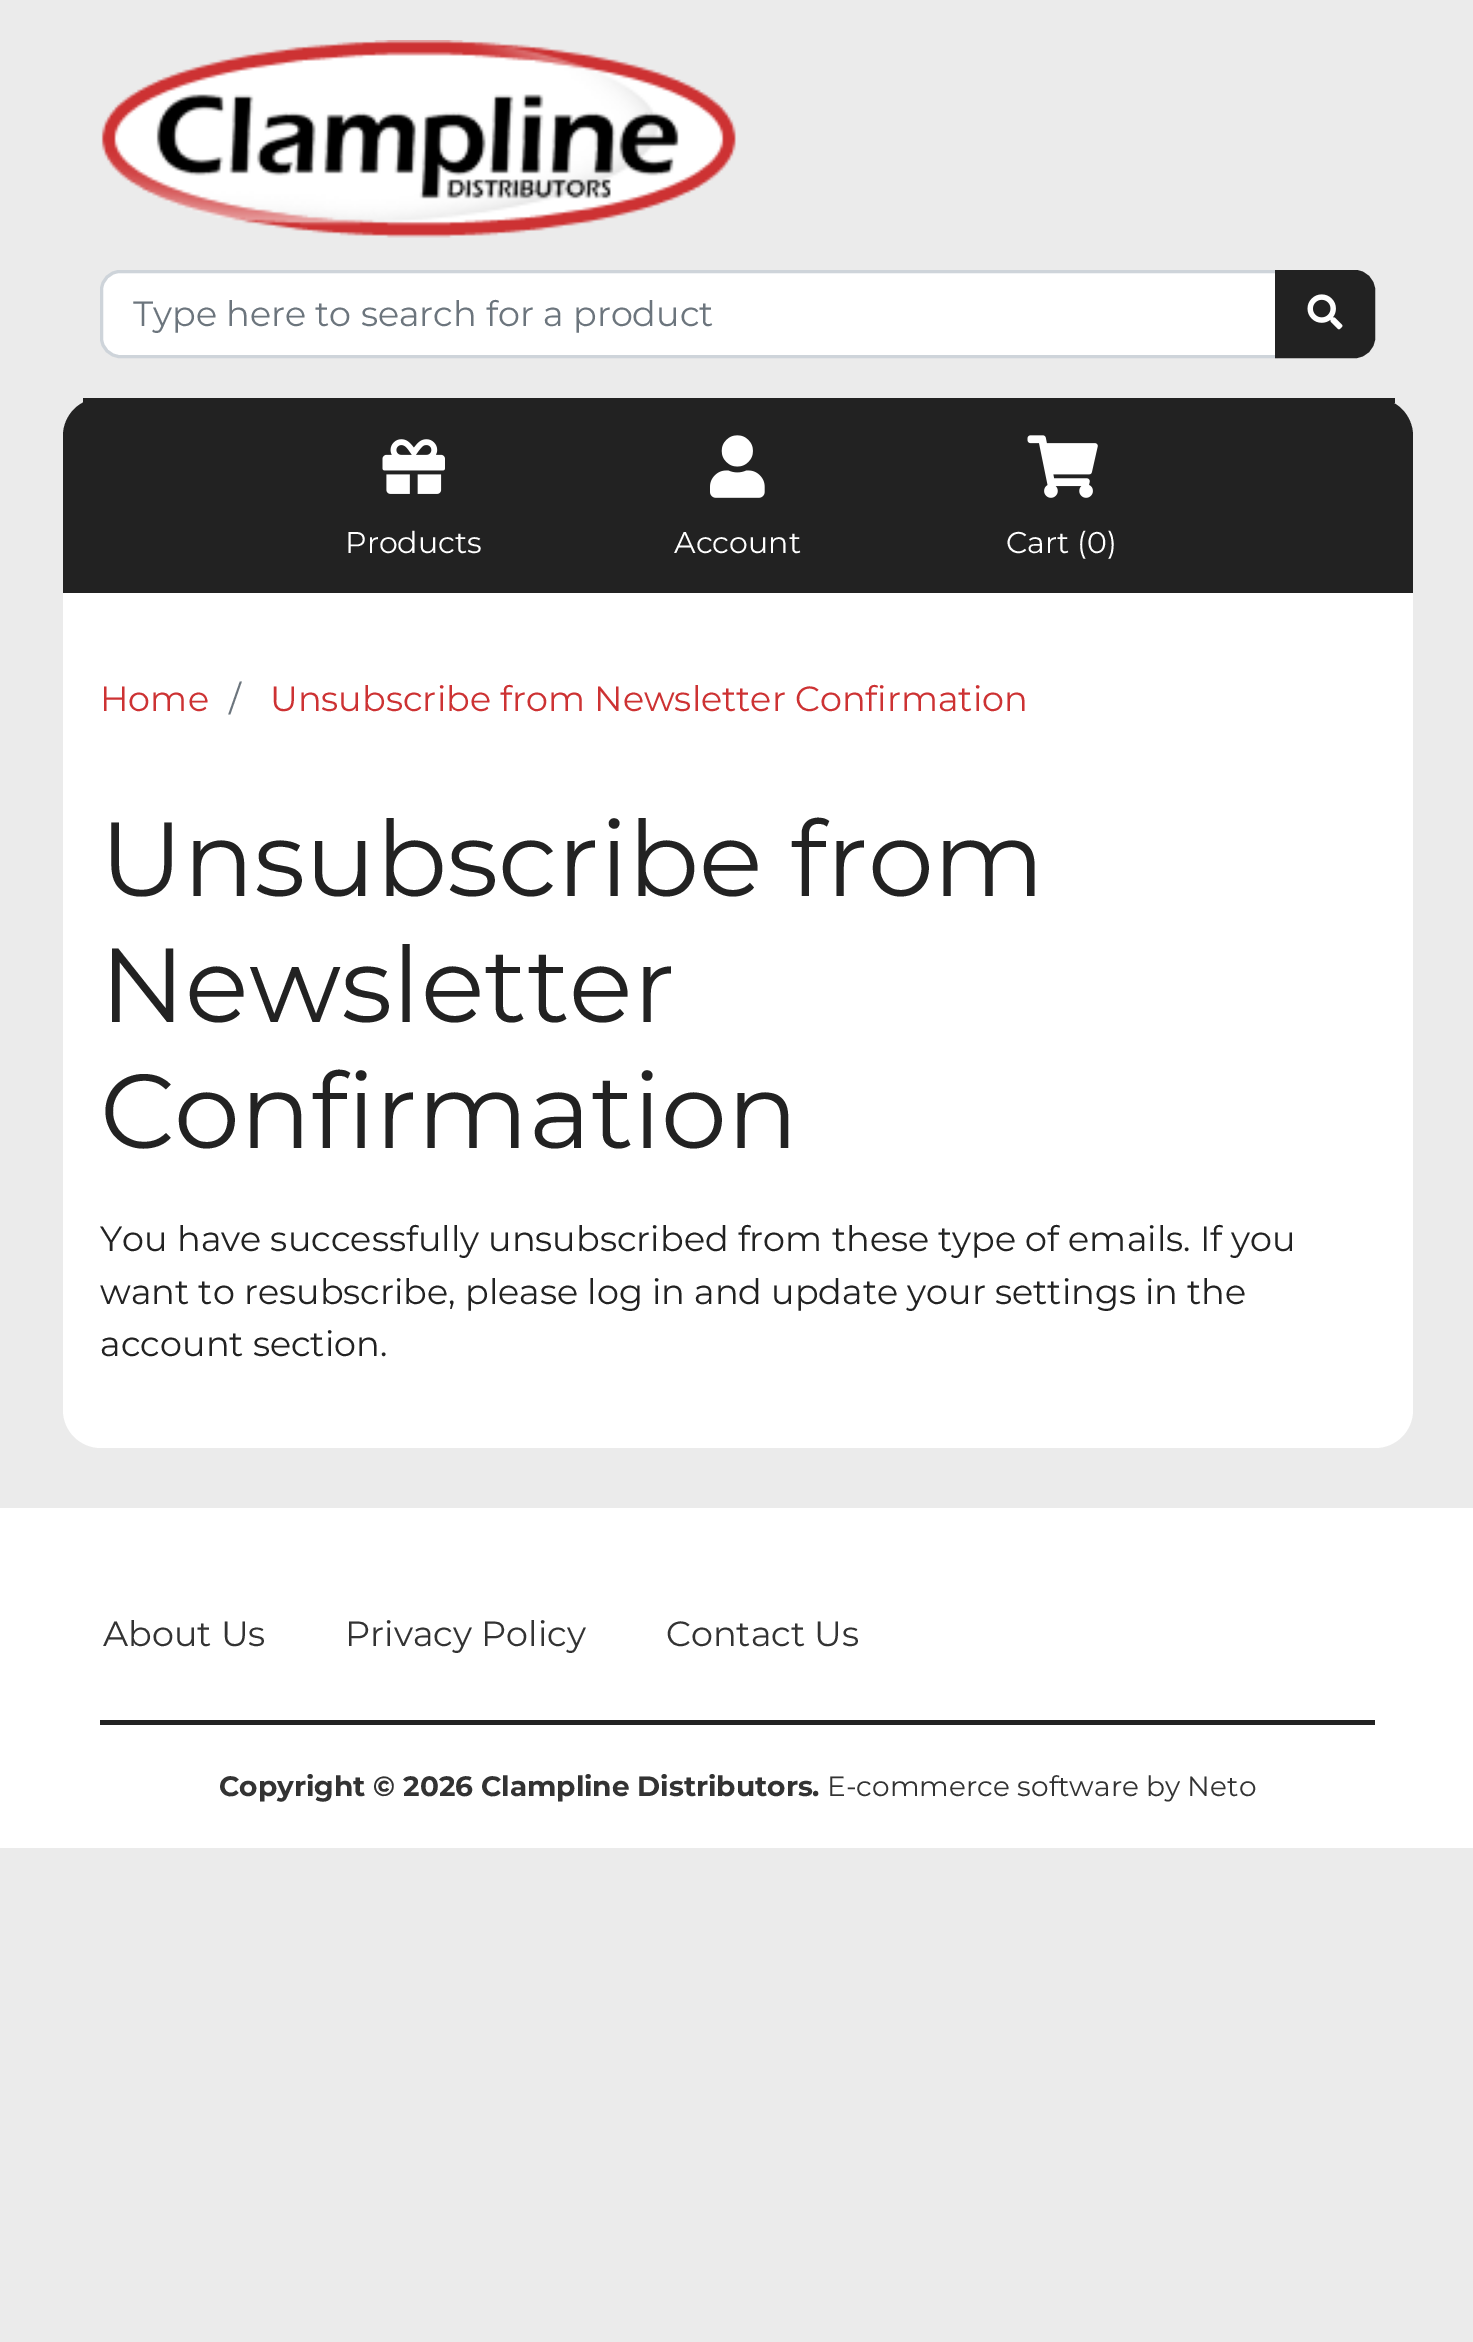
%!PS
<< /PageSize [1473 2342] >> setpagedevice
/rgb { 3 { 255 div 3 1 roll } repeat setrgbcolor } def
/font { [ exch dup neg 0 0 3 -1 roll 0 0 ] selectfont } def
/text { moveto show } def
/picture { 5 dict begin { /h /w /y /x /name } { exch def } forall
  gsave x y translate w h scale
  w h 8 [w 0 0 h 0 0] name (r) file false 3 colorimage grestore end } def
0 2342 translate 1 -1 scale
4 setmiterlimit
235 235 235 rgb
0 0 1473 2342 rectfill
(img_01.rgb) 101 40 635 198 picture
255 255 255 rgb
120 271.5 moveto 1156.5 0 rlineto 0 85 rlineto -1156.5 0 rlineto -10 0 -18.5 -8.5 -18.5 -18.5 rcurveto 0 -48 rlineto 0 -10 8.5 -18.5 18.5 -18.5 rcurveto closepath gsave fill grestore
206 212 218 rgb
3 setlinewidth
stroke
34 34 34 rgb
1276.5 271.5 moveto 78.5 0 rlineto 10 0 18.5 8.5 18.5 18.5 rcurveto 0 48 rlineto 0 10 -8.5 18.5 -18.5 18.5 rcurveto -78.5 0 rlineto closepath gsave fill grestore
stroke
(img_02.rgb) 1307 294 36 36 picture
101 398 moveto 1274 0 rlineto 21 0 38 17 38 38 rcurveto 0 157 rlineto -1350 0 rlineto 0 -157 rlineto 0 -21 17 -38 38 -38 rcurveto closepath fill
83 398 1312 5 rectfill
(img_03.rgb) 382 439 63 55 picture
(img_04.rgb) 710 435 55 63 picture
(img_05.rgb) 1027 435 71 63 picture
255 255 255 rgb
63 593 moveto 1350 0 rlineto 0 817 rlineto 0 21 -17 38 -38 38 rcurveto -1274 0 rlineto -21 0 -38 -17 -38 -38 rcurveto closepath fill
0 1508 1473 340 rectfill
34 34 34 rgb
100 1720 1275 5 rectfill
gsave
133 290 1112 45 rectclip
/Montserrat-Regular 35 font
108 117 125 rgb
(Type here to search for a product) 133 326 text
grestore
/Montserrat-Regular 30 font
255 255 255 rgb
(Products) 345 553 text
(Account) 674 553 text
(Cart \(0\)) 1006 553 text
/Montserrat-Regular 35 font
205 50 51 rgb
(Home) 100 711 text
108 117 125 rgb
(/) 229 711 text
205 50 51 rgb
(Unsubscribe from Newsletter Confirmation) 270 711 text
/Montserrat-Regular 105 font
34 34 34 rgb
(Unsubscribe from) 100 896 text
(Newsletter) 100 1022 text
(Confirmation) 100 1148 text
/Montserrat-Regular 35 font
(You have successfully unsubscribed from these type of emails. If you) 100 1251 text
(want to resubscribe, please log in and update your settings in the) 100 1304 text
(account section.) 100 1356 text
51 51 51 rgb
(About Us) 103 1646 text
(Privacy Policy) 345 1646 text
(Contact Us) 666 1646 text
/Montserrat-Bold 28 font
(Copyright © 2026 Clampline Distributors.) 219 1796 text
/Montserrat-Regular 28 font
(E-commerce software by Neto) 827 1796 text
showpage
